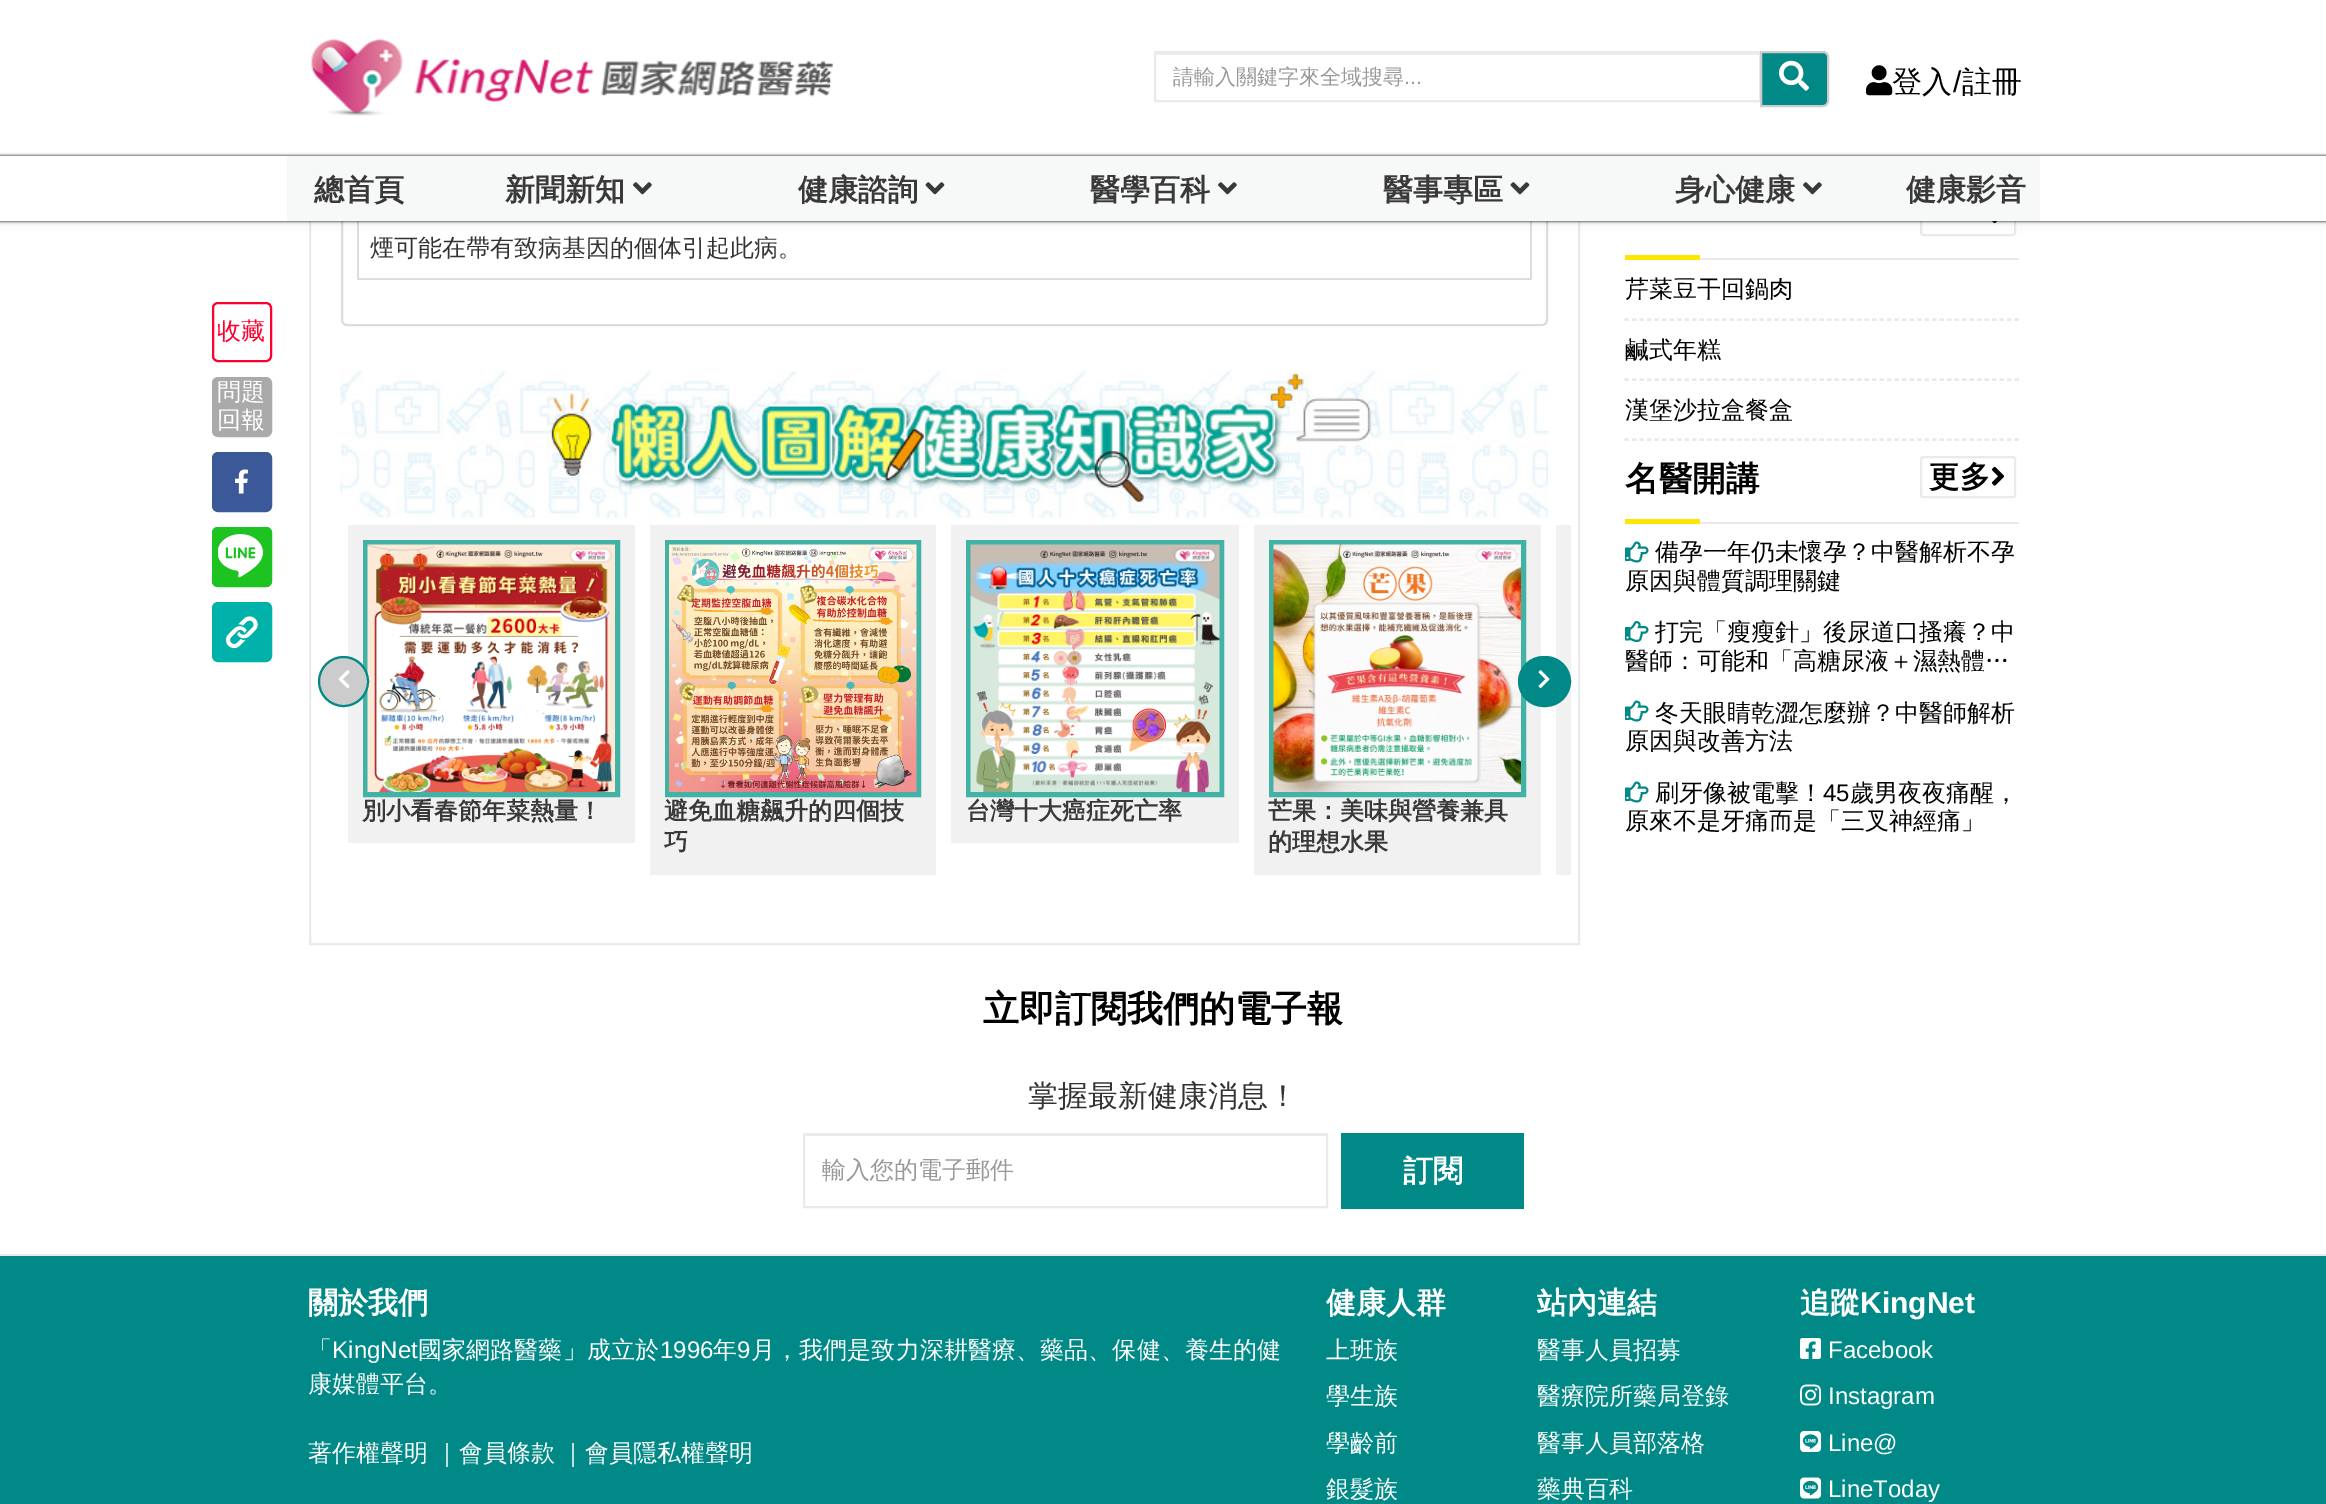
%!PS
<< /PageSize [2326 1504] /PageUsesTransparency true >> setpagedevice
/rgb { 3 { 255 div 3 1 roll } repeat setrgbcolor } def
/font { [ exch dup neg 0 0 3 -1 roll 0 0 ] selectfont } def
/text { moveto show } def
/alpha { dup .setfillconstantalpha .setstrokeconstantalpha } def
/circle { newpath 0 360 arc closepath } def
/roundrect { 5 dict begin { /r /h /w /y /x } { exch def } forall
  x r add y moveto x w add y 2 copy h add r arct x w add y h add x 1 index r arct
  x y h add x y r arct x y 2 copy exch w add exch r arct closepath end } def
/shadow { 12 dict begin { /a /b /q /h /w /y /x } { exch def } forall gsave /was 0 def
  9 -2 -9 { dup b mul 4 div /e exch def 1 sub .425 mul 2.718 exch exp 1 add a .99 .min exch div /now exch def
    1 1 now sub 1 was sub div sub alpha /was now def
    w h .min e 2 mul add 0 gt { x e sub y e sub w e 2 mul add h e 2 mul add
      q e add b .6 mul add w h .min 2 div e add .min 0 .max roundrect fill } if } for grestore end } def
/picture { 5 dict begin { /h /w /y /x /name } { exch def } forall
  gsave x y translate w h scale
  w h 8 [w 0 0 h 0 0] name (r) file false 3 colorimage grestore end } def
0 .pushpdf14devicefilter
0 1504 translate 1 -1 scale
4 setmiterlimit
255 255 255 rgb
0 0 2326 1504 rectfill
234 234 234 rgb
2 setlinewidth
310 -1 1269 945 rectstroke
221 221 221 rgb
342 3 1205 322 5 roundrect stroke
1530 221 2 58 rectfill
357 278 1175 2 rectfill
357 221 2 58 rectfill
234 234 234 rgb
1921 195 94 40 2 roundrect stroke
(img_16.rgb) 1992 221 6 3 picture
0 0 0 rgb
0 5 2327 220 0 5.5 0.05 shadow
255 255 255 rgb
0 0 2326 156 rectfill
(img_01.rgb) 311 38 522 78 picture
236 236 236 rgb
1155 53 605 2 rectfill
234 234 234 rgb
1155 52 605 49 rectstroke
0 137 134 rgb
1761 52 moveto 62 0 rlineto 3 0 5 2 5 5 rcurveto 0 44 rlineto 0 3 -2 5 -5 5 rcurveto -62 0 rlineto closepath gsave fill grestore
204 204 204 rgb
stroke
(img_02.rgb) 1779 60 30 31 picture
(img_03.rgb) 1866 65 27 31 picture
0 0 0 rgb
0 156 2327 65 0 1.5 1 shadow
255 255 255 rgb
0 156 2326 65 rectfill
247 248 248 rgb
287 156 1753 65 rectfill
(img_04.rgb) 633 182 19 13 picture
(img_05.rgb) 925 182 20 13 picture
(img_04.rgb) 1218 182 19 13 picture
(img_05.rgb) 1510 182 20 13 picture
(img_04.rgb) 1803 182 19 13 picture
255 0 45 rgb
213 303 58 58 5 roundrect stroke
170 170 170 rgb
213 378 58 58 5 roundrect gsave fill grestore
stroke
59 89 152 rgb
213 453 58 58 5 roundrect gsave fill grestore
stroke
(img_06.rgb) 235 469 13 25 picture
29 195 32 rgb
212 527 60 60 6 roundrect fill
(img_07.rgb) 218 534 45 44 picture
213 528 58 58 5 roundrect stroke
(img_08.rgb) 213 603 57 57 picture
0 177 169 rgb
213 603 58 58 5 roundrect stroke
(img_09.rgb) 340 370 1208 148 picture
241 241 241 rgb
348 525 287 318 rectfill
65 178 165 rgb
5 setlinewidth
365.5 542.5 252 252 rectstroke
(img_12.rgb) 367 544 248 248 picture
204 204 204 rgb
343.5 681.5 24.5 circle gsave fill grestore
0 137 134 rgb
2 setlinewidth
stroke
(img_10.rgb) 338 670 12 18 picture
241 241 241 rgb
1254 525 287 350 rectfill
65 178 165 rgb
5 setlinewidth
1271.5 542.5 252 252 rectstroke
(img_15.rgb) 1273 544 248 248 picture
241 241 241 rgb
1556 525 15 350 rectfill
0 137 134 rgb
1519 657 51 49 24.5 roundrect gsave fill grestore
2 setlinewidth
stroke
(img_11.rgb) 1538 670 12 19 picture
241 241 241 rgb
650 525 286 350 rectfill
65 178 165 rgb
5 setlinewidth
667.5 542.5 251 252 rectstroke
(img_13.rgb) 669 544 248 248 picture
241 241 241 rgb
951 525 288 318 rectfill
65 178 165 rgb
968.5 542.5 253 252 rectstroke
(img_14.rgb) 970 544 250 248 picture
234 234 234 rgb
1700 258 319 2 rectfill
255 230 0 rgb
1625 255 75 5 rectfill
234 234 234 rgb
1.5 setlinewidth
[4.5 3] 0 setdash
1624.5 319 moveto 394.5 0 rlineto stroke
2018 318 1 3 rectfill
1624.5 320 moveto 394.5 0 rlineto stroke
1625 318 2 3 rectfill
1624.5 379 moveto 394.5 0 rlineto stroke
2018 378 1 3 rectfill
1624.5 380 moveto 394.5 0 rlineto stroke
1625 378 2 3 rectfill
1624.5 439 moveto 394.5 0 rlineto stroke
2018 438 1 3 rectfill
1624.5 440 moveto 394.5 0 rlineto stroke
1625 438 2 3 rectfill
1700 522 319 2 rectfill
2 setlinewidth
[] 0 setdash
1921 457 94 40 2 roundrect stroke
(img_17.rgb) 1992 466 12 20 picture
255 230 0 rgb
1625 519 75 5 rectfill
(img_18.rgb) 1625 541 24 22 picture
(img_19.rgb) 1625 621 24 21 picture
(img_18.rgb) 1625 700 24 22 picture
(img_18.rgb) 1625 781 24 22 picture
234 234 234 rgb
0 1254 2326 2 rectfill
236 236 236 rgb
804 1135 522 1 rectfill
234 234 234 rgb
804 1134 523 73 rectstroke
0 137 134 rgb
1341 1133 183 76 rectfill
0 1256 2326 248 rectfill
(img_20.rgb) 1800 1338 21 21 picture
(img_21.rgb) 1800 1384 22 22 picture
(img_22.rgb) 1800 1431 22 21 picture
(img_23.rgb) 1800 1477 22 22 picture
/WenQuanYiZenHei-Medium 21 font
153 153 153 rgb
(請輸入關鍵字來全域搜尋) 1173 84 text
/LiberationSans-Regular 21 font
(...) 1404 84 text
/WenQuanYiZenHei-Medium 30 font
0 0 0 rgb
(登入) 1892 92 text
/LiberationSans-Regular 30 font
(/) 1953 92 text
/WenQuanYiZenHei-Medium 30 font
(註冊) 1962 92 text
/WenQuanYiZenHei-Bold 30 font
57 57 57 rgb
(總首頁) 314 200 text
(新聞新知) 505 200 text
(健康諮詢) 798 200 text
(醫學百科) 1090 200 text
(醫事專區) 1383 200 text
(身心健康) 1675 200 text
(健康影音) 1906 200 text
/WenQuanYiZenHei-Medium 24 font
255 0 45 rgb
(收藏) 217 339 text
255 255 255 rgb
(問題) 217 400 text
(回報) 217 428 text
51 51 51 rgb
(煙可能在帶有致病基因的個体引起此病。) 370 256 text
/WenQuanYiZenHei-Bold 24 font
57 57 57 rgb
(別小看春節年菜熱量！) 362 819 text
(避免血糖飆升的四個技) 664 819 text
(巧) 664 850 text
(台灣十大癌症死亡率) 966 819 text
(芒果：美味與營養兼具) 1268 819 text
(的理想水果) 1268 850 text
/WenQuanYiZenHei-Medium 24 font
0 0 0 rgb
(芹菜豆干回鍋肉) 1625 297 text
(鹹式年糕) 1625 358 text
(漢堡沙拉盒餐盒) 1625 418 text
/WenQuanYiZenHei-Bold 33.5 font
(名醫開講) 1625 490 text
/WenQuanYiZenHei-Bold 30 font
1929 487 moveto 1 0 (更多) ashow
/WenQuanYiZenHei-Medium 24 font
(備孕一年仍未懷孕？中醫解析不孕) 1655 560 text
(原因與體質調理關鍵) 1625 589 text
(打完「瘦瘦針」後尿道口搔癢？中) 1655 640 text
(醫師：可能和「高糖尿液＋濕熱體…) 1625 669 text
(冬天眼睛乾澀怎麼辦？中醫師解析) 1655 721 text
(原因與改善方法) 1625 749 text
(刷牙像被電擊！) 1655 801 text
/LiberationSans-Regular 24 font
(45) 1823 801 text
/WenQuanYiZenHei-Medium 24 font
(歲男夜夜痛醒，) 1850 801 text
(原來不是牙痛而是「三叉神經痛」) 1625 829 text
/WenQuanYiZenHei-Bold 36 font
(立即訂閱我們的電子報) 983 1021 text
/WenQuanYiZenHei-Medium 30 font
51 51 51 rgb
(掌握最新健康消息！) 1028 1106 text
/WenQuanYiZenHei-Medium 24 font
153 153 153 rgb
(輸入您的電子郵件) 822 1178 text
/WenQuanYiZenHei-Bold 30 font
255 255 255 rgb
(訂閱) 1403 1181 text
(關於我們) 308 1313 text
/WenQuanYiZenHei-Medium 24 font
308 1358 moveto 0.1 0 (「) ashow
/LiberationSans-Regular 24 font
332 1358 moveto 0.1 0 (KingNet) ashow
/WenQuanYiZenHei-Medium 24 font
418 1358 moveto 0.1 0 (國家網路醫藥」成立於) ashow
/LiberationSans-Regular 24 font
660 1358 moveto 0.1 0 (1996) ashow
/WenQuanYiZenHei-Medium 24 font
713 1358 moveto 0.1 0 (年) ashow
/LiberationSans-Regular 24 font
737 1358 moveto 0.1 0 (9) ashow
/WenQuanYiZenHei-Medium 24 font
751 1358 moveto 0.1 0 (月，我們是致力深耕醫療、藥品、保健、養生的健) ashow
(康媒體平台。) 308 1392 text
(著作權聲明) 308 1461 text
(｜會員條款) 435 1461 text
(｜會員隱私權聲明) 561 1461 text
/WenQuanYiZenHei-Bold 30 font
(健康人群) 1326 1313 text
/WenQuanYiZenHei-Medium 24 font
(上班族) 1326 1358 text
(學生族) 1326 1404 text
(學齡前) 1326 1451 text
(銀髮族) 1326 1497 text
/WenQuanYiZenHei-Bold 30 font
(站內連結) 1537 1313 text
/WenQuanYiZenHei-Medium 24 font
(醫事人員招募) 1537 1358 text
(醫療院所藥局登錄) 1537 1404 text
(醫事人員部落格) 1537 1451 text
(藥典百科) 1537 1497 text
/WenQuanYiZenHei-Bold 30 font
(追蹤) 1800 1313 text
/LiberationSans-Bold 30 font
(KingNet) 1860 1313 text
/LiberationSans-Regular 24 font
(Facebook) 1828 1358 text
(Instagram) 1828 1404 text
(Line@) 1828 1451 text
(LineToday) 1828 1497 text
.poppdf14devicefilter showpage
